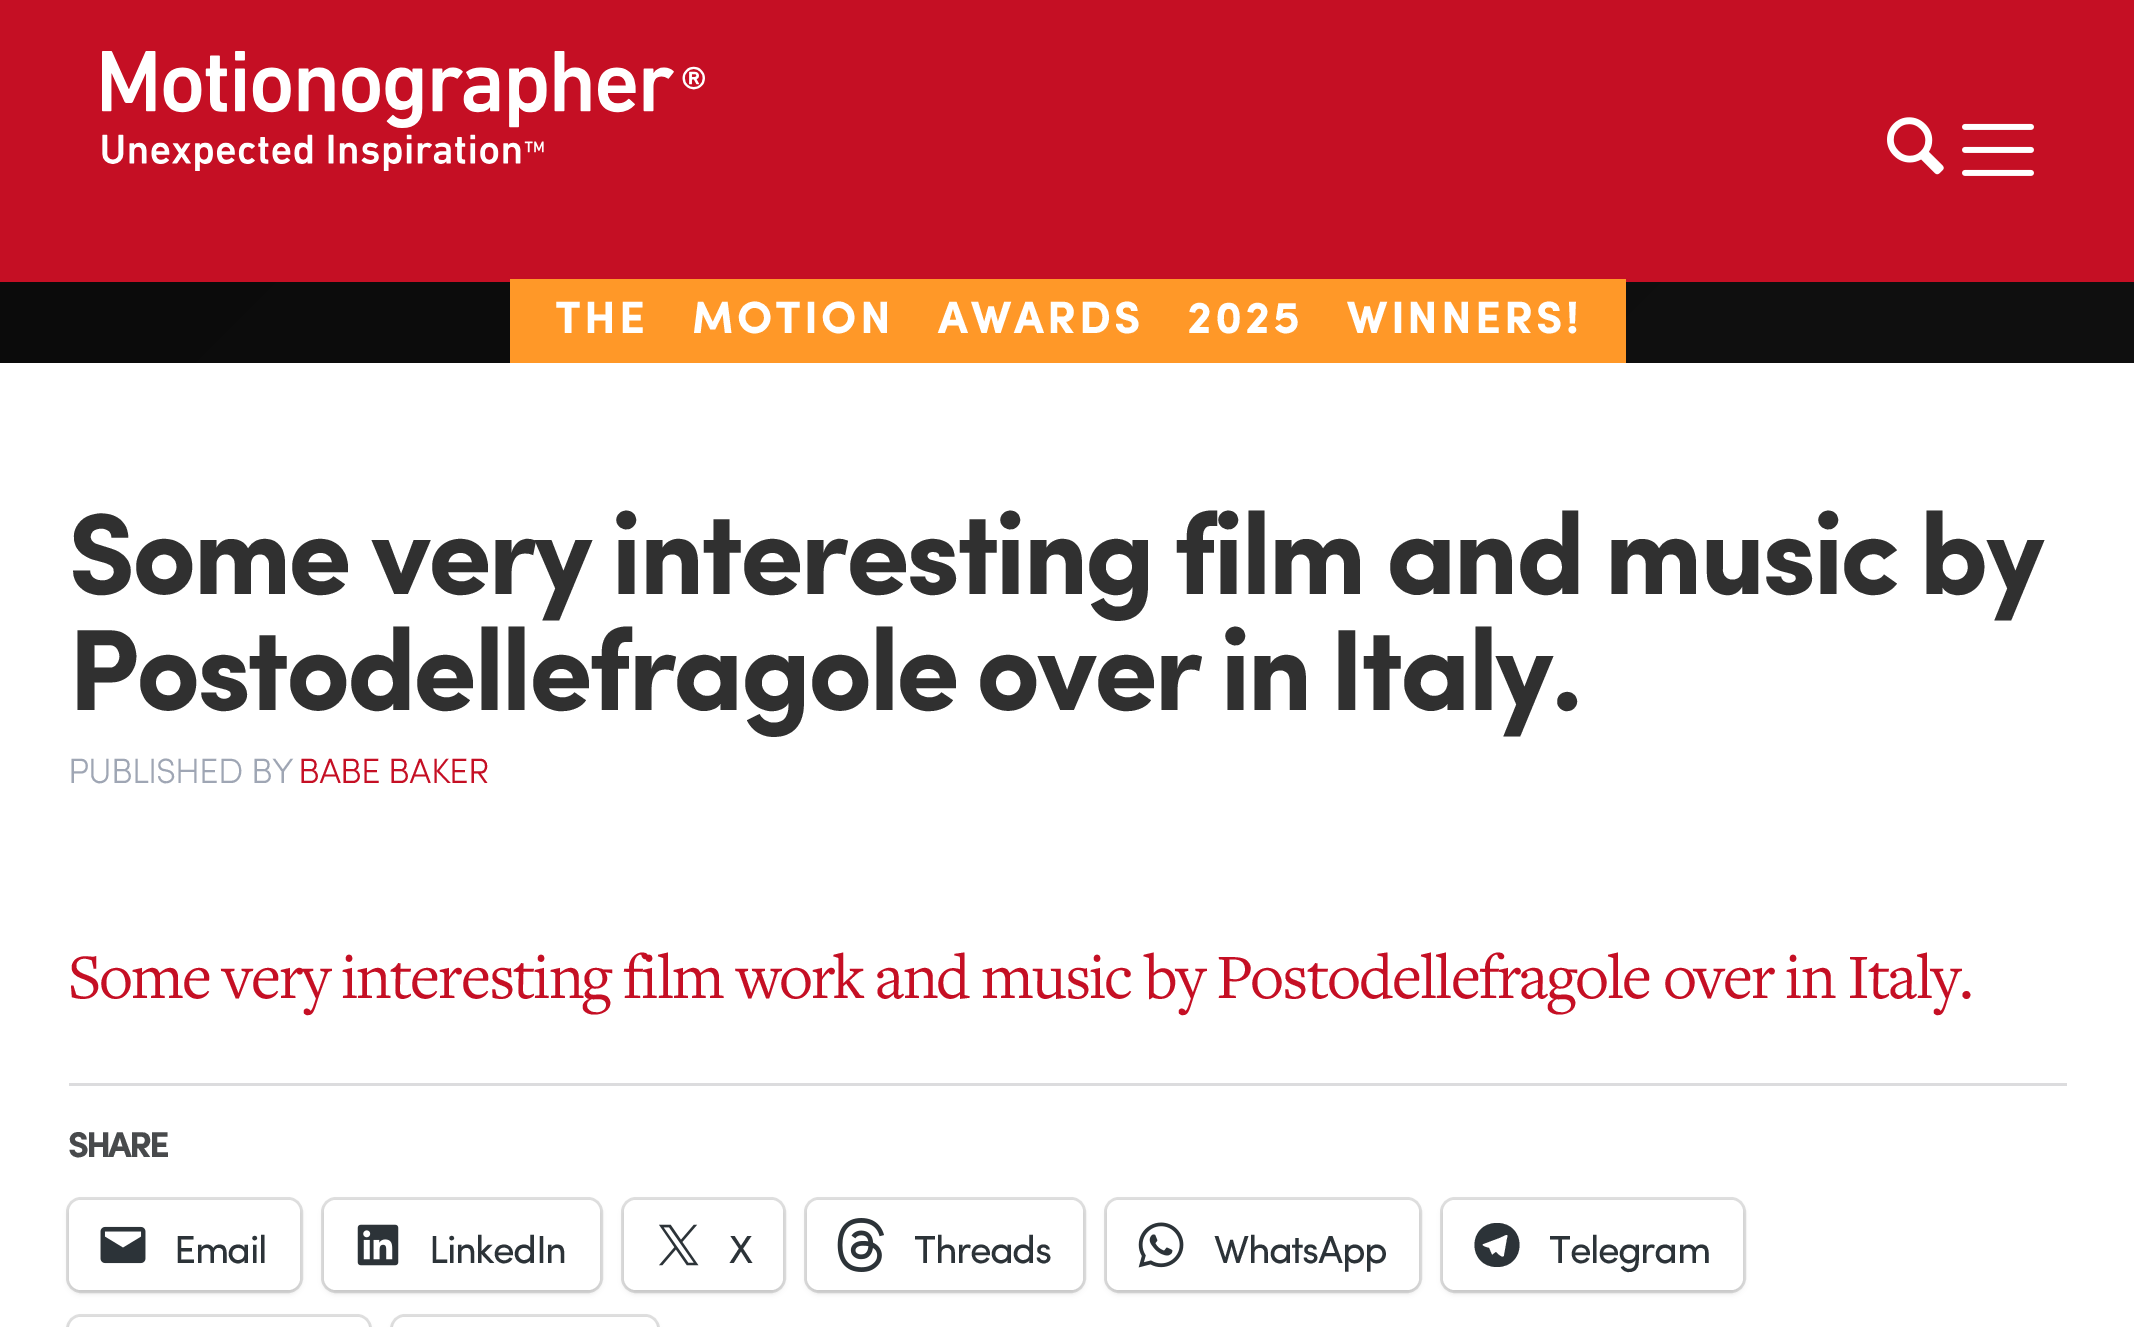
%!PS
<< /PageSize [2134 1327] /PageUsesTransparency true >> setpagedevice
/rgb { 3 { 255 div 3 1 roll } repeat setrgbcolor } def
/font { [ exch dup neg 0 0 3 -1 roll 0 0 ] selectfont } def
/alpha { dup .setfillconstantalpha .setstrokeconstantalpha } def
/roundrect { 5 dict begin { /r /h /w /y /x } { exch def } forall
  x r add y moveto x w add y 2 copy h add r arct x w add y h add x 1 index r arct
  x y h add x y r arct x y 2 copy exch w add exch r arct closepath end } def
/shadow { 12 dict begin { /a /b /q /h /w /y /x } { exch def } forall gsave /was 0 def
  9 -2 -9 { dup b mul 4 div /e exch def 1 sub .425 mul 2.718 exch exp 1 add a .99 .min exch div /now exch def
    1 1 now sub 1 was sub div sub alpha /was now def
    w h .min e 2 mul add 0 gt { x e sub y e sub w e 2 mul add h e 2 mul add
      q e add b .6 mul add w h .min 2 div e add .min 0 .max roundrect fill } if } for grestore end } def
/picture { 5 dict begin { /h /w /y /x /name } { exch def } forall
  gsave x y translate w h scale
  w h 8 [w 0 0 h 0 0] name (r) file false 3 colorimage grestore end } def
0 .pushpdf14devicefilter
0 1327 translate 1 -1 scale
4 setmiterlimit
255 255 255 rgb
0 0 2134 1327 rectfill
197 15 36 rgb
0 0 2134 282 rectfill
(img_01.rgb) 102 51 603 120 picture
(img_02.rgb) 1887 117 57 58 picture
(img_03.rgb) 1962 123 72 53 picture
gsave 0 282 moveto 2134 0 rlineto 0 81 rlineto -2134 0 rlineto closepath clip newpath
<< /ShadingType 2 /ColorSpace /DeviceRGB /Coords [2055 -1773 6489 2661] /Extend [true true] /Function << /FunctionType 3 /Domain [0 1] /Functions [<< /FunctionType 2 /Domain [0 1] /C0 [0.043 0.043 0.043] /C1 [0.078 0.078 0.078] /N 1 >> << /FunctionType 2 /Domain [0 1] /C0 [0.078 0.078 0.078] /C1 [0.043 0.043 0.043] /N 1 >>] /Bounds [0.5] /Encode [0 1 0 1] >> >> shfill grestore
255 152 40 rgb
510 279 1116 84 rectfill
220 220 222 rgb
69 1083 1998 3 rectfill
224 224 224 rgb
3 setlinewidth
67.5 1198.5 234 93 13.5 roundrect stroke
0 0 0 rgb
69 1203 231 90 12 3 0.12 shadow
255 255 255 rgb
69 1200 231 90 12 roundrect fill
(img_04.rgb) 100 1226 46 38 picture
224 224 224 rgb
322.5 1198.5 279 93 13.5 roundrect stroke
0 0 0 rgb
324 1203 276 90 12 3 0.12 shadow
255 255 255 rgb
324 1200 276 90 12 roundrect fill
(img_05.rgb) 357 1224 42 42 picture
224 224 224 rgb
622.5 1198.5 162 93 13.5 roundrect stroke
0 0 0 rgb
624 1203 159 90 12 3 0.12 shadow
255 255 255 rgb
624 1200 159 90 12 roundrect fill
(img_06.rgb) 659 1224 40 42 picture
224 224 224 rgb
805.5 1198.5 279 93 13.5 roundrect stroke
0 0 0 rgb
807 1203 276 90 12 3 0.12 shadow
255 255 255 rgb
807 1200 276 90 12 roundrect fill
(img_07.rgb) 837 1218 47 54 picture
224 224 224 rgb
1105.5 1198.5 315 93 13.5 roundrect stroke
0 0 0 rgb
1107 1203 312 90 12 3 0.12 shadow
255 255 255 rgb
1107 1200 312 90 12 roundrect fill
(img_08.rgb) 1138 1222 46 46 picture
224 224 224 rgb
1441.5 1198.5 303 93 13.5 roundrect stroke
0 0 0 rgb
1443 1203 300 90 12 3 0.12 shadow
255 255 255 rgb
1443 1200 300 90 12 roundrect fill
44 51 56 rgb
1497 1223 moveto -30 0 -30 44 0 44 rcurveto 30 0 30 -44 0 -44 rcurveto closepath 1504 1256 moveto -2 3 -7 -3 -8 -4 rcurveto -4 3 rlineto -3 -7 rlineto 0 0 -9 -2 -6 -4 rcurveto 16 -6 rlineto 7 -3 10 -6 8 1 rcurveto closepath fill
224 224 224 rgb
67.5 1315.5 303 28 13.5 roundrect stroke
0 0 0 rgb
69 1320 300 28 12 3 0.12 shadow
255 255 255 rgb
69 1317 300 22 12 roundrect fill
224 224 224 rgb
391.5 1315.5 267 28 13.5 roundrect stroke
0 0 0 rgb
393 1320 264 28 12 3 0.12 shadow
255 255 255 rgb
393 1317 264 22 12 roundrect fill
/Sofia-Bold 45.4 font
555 333 moveto 30 0 32 3 0 (THE MOTION AWARDS 2025 WINNERS!) awidthshow
/Sofia-Bold 115.9 font
48 48 48 rgb
68 594 moveto -2.5 0 32 -3.5 0 (Some very interesting film and music by) awidthshow
68 710 moveto -5 0 32 -3.5 0 (Postodellefragole over in Italy.) awidthshow
/Sofia-Light 35.25 font
159 166 180 rgb
68 783 moveto -1 0 (PUBLISHED BY) ashow
197 15 36 rgb
298 783 moveto -1 0 (BABE BAKER) ashow
/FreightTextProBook-Regular 65.5 font
68 998 moveto -0.5 0 32 -1.97 0 (Some very interesting film work and music by Postodellefragole over in Italy.) awidthshow
/Sofia-Bold 36 font
72 74 76 rgb
68 1157 moveto -3 0 (SHARE) ashow
/Sofia-Regular 39 font
44 51 56 rgb
174 1263 moveto -1.5 0 (Email) ashow
429 1263 moveto -1.5 0 (LinkedIn) ashow
729 1263 moveto -1.5 0 (X) ashow
914 1263 moveto -1.5 0 (Threads) ashow
1214 1263 moveto -1.5 0 (WhatsApp) ashow
1549 1263 moveto -1.5 0 (Telegram) ashow
.poppdf14devicefilter showpage
